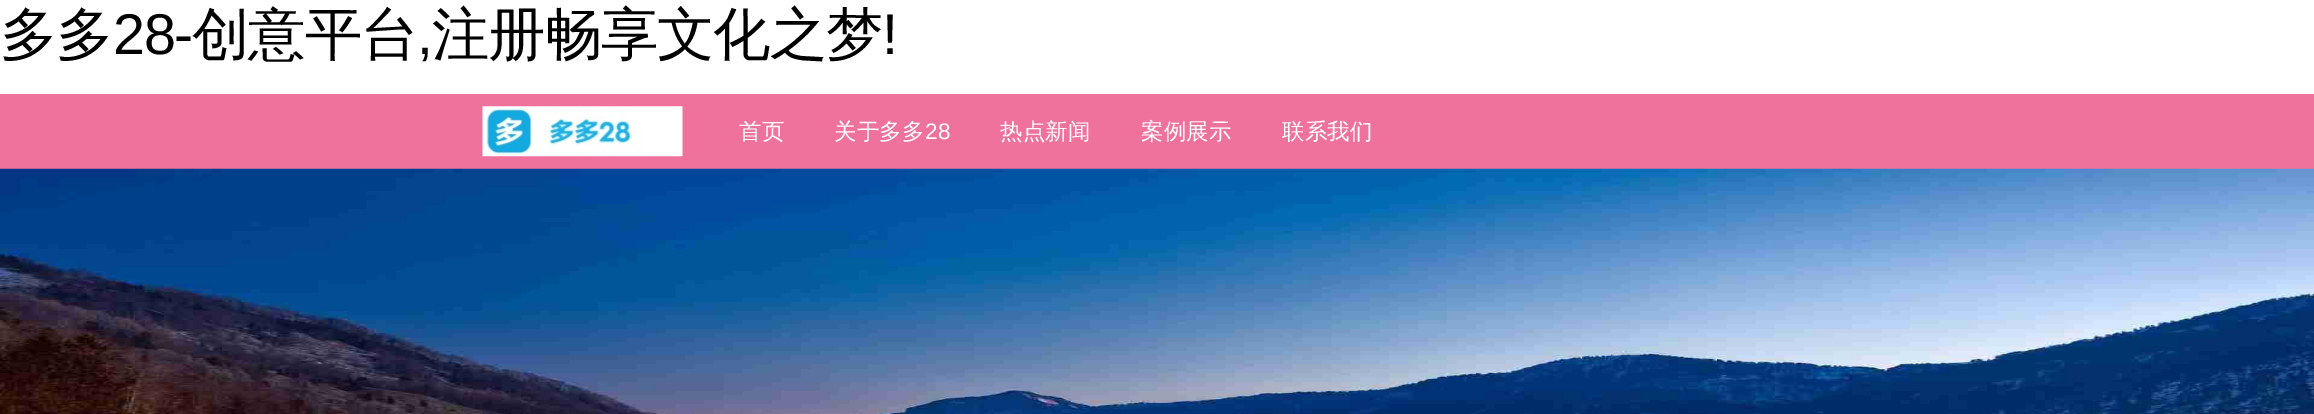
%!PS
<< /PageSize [2314 414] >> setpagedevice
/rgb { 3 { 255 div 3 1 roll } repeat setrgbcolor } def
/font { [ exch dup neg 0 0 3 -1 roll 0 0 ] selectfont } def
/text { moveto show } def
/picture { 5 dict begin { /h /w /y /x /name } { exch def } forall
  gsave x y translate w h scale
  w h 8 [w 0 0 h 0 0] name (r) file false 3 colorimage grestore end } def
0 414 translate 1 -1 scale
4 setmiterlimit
255 255 255 rgb
0 0 2314 414 rectfill
238 114 156 rgb
0 94 2314 75 rectfill
(img_01.rgb) 482 106 201 51 picture
(img_02.rgb) 0 168 2314 246 picture
/WenQuanYiZenHei-Medium 57.5 font
0 0 0 rgb
0 54 moveto -1.25 0 (多多) ashow
/LiberationSans-Regular 57.5 font
113 54 moveto -1.25 0 (28-) ashow
/WenQuanYiZenHei-Medium 57.5 font
192 54 moveto -1.25 0 (创意平台) ashow
/LiberationSans-Regular 57.5 font
417 54 moveto -1.25 0 (,) ashow
/WenQuanYiZenHei-Medium 57.5 font
432 54 moveto -1.25 0 (注册畅享文化之梦) ashow
/LiberationSans-Regular 57.5 font
882 54 moveto -1.25 0 (!) ashow
/WenQuanYiZenHei-Medium 22.5 font
255 255 255 rgb
(首页) 739 139 text
(关于多多) 834 139 text
/LiberationSans-Regular 22.5 font
(28) 925 139 text
/WenQuanYiZenHei-Medium 22.5 font
(热点新闻) 1000 139 text
(案例展示) 1141 139 text
(联系我们) 1282 139 text
showpage
